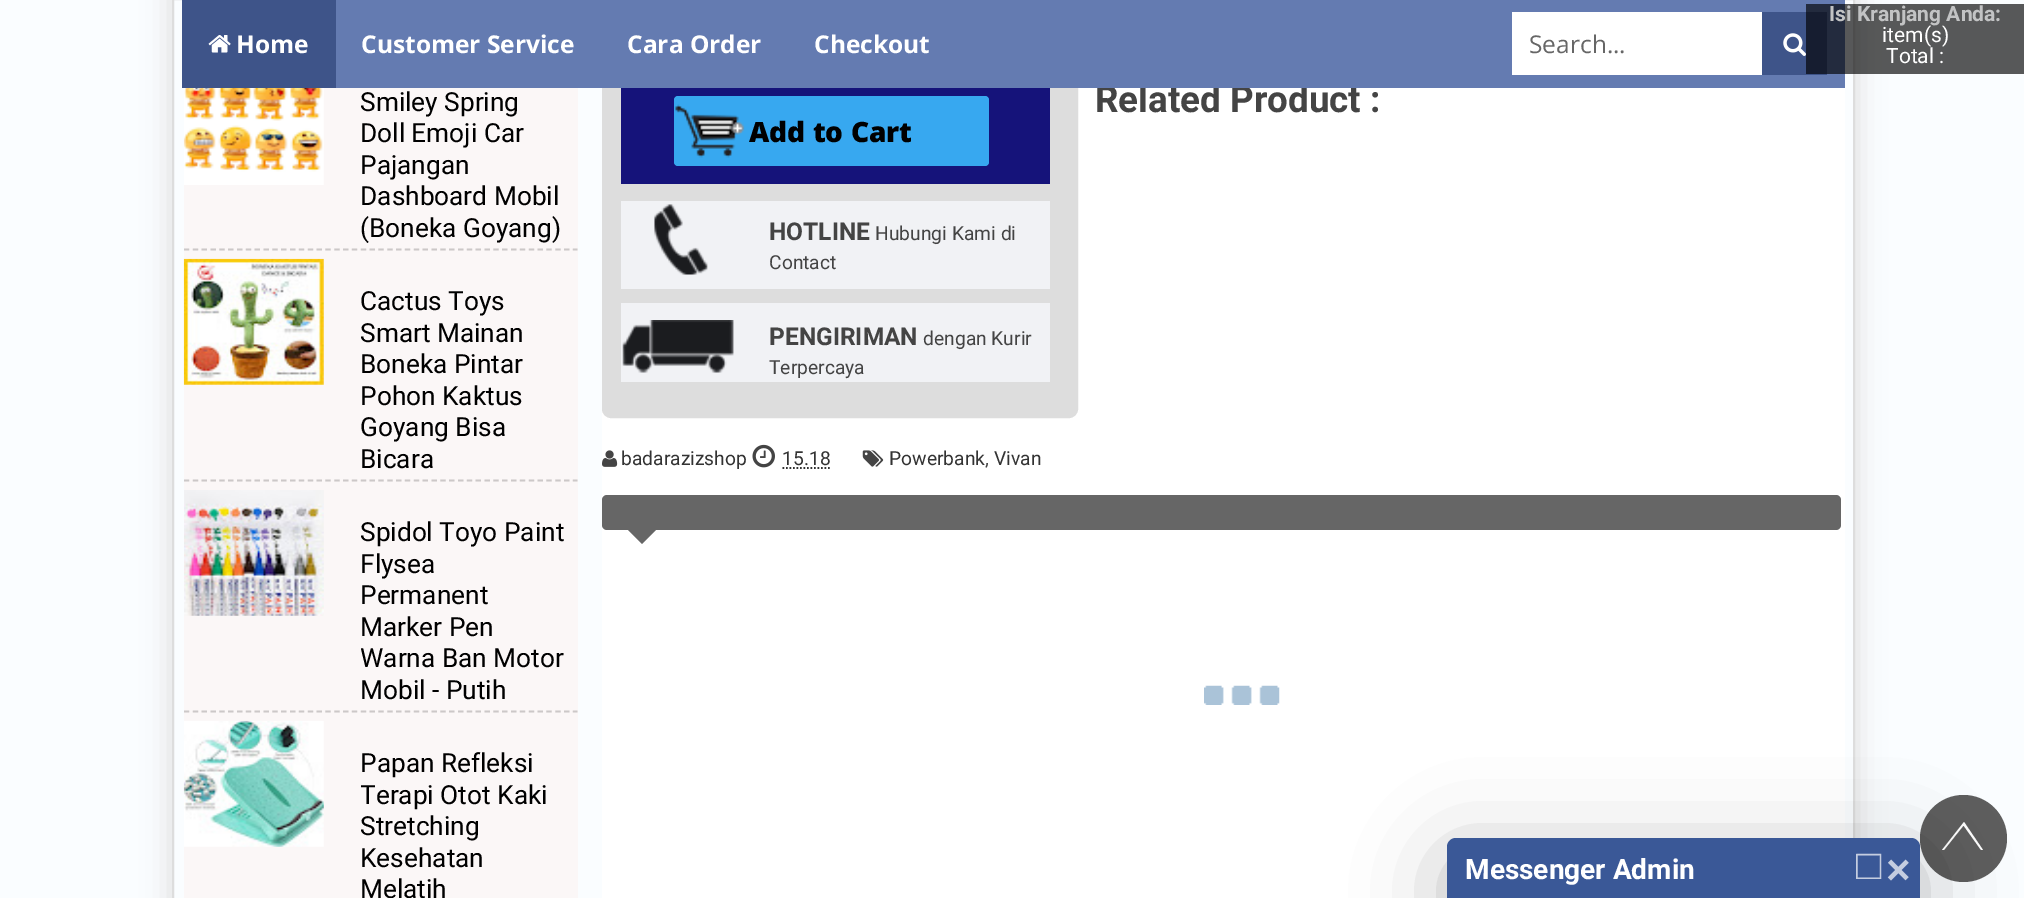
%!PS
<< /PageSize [2024 898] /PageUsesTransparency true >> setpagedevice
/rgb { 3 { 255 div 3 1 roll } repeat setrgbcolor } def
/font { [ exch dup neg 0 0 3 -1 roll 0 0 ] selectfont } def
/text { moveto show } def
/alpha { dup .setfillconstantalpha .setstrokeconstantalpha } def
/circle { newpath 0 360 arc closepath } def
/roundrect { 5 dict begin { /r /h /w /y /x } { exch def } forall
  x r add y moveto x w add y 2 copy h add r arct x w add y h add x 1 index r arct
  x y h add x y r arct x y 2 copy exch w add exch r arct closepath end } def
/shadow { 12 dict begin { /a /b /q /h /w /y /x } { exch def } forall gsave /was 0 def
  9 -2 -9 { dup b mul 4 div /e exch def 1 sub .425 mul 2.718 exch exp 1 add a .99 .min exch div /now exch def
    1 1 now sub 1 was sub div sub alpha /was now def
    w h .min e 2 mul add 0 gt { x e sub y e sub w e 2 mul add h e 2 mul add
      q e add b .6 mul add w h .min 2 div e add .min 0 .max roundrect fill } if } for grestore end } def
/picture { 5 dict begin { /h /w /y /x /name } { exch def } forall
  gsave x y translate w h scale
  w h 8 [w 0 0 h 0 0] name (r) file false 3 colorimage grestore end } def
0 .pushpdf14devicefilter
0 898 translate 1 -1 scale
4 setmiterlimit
250 253 255 rgb
0 0 2024 898 rectfill
gsave
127 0 moveto 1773 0 rlineto 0 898 rlineto -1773 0 rlineto closepath 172 -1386 moveto 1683 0 rlineto 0 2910 rlineto -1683 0 rlineto closepath eoclip newpath
221 221 221 rgb
170 -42 1687 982 0 14 1 shadow
grestore
221 221 221 rgb
2 setlinewidth
173 -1 1681 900 rectstroke
62 84 137 rgb
182 0 154 88 rectfill
(img_01.rgb) 208 35 23 18 picture
251 247 247 rgb
184 88 394 810 rectfill
204 200 200 rgb
1.8 setlinewidth
[5.25 3.59] 0 setdash
184 249.5 moveto 393.5 0 rlineto stroke
(img_03.rgb) 183 88 141 97 picture
184 480.5 moveto 393.5 0 rlineto stroke
(img_04.rgb) 183 258 141 127 picture
184 711.5 moveto 393.5 0 rlineto stroke
(img_05.rgb) 184 490 140 126 picture
(img_06.rgb) 183 720 141 127 picture
255 255 255 rgb
602 88 1243 810 rectfill
221 221 221 rgb
603 -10 474 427 8 roundrect gsave fill grestore
2 setlinewidth
[] 0 setdash
stroke
21 19 122 rgb
621 88 429 96 rectfill
55 168 240 rgb
674 96 315 70 4 roundrect fill
(img_07.rgb) 675 104 70 54 picture
241 242 245 rgb
621 201 429 88 rectfill
(img_08.rgb) 654 204 54 71 picture
621 303 429 79 rectfill
(img_09.rgb) 622 320 112 53 picture
(img_10.rgb) 602 450 16 17 picture
(img_11.rgb) 752 444 23 24 picture
51 51 51 rgb
1.8 setlinewidth
[1.75 1.75] 0 setdash
782.5 468 moveto 48 0 rlineto stroke
(img_12.rgb) 862 450 22 17 picture
102 102 102 rgb
602 495 1239 35 5 roundrect fill
628 530 moveto 28 0 rlineto -14 14 rlineto closepath fill
(img_13.rgb) 1204 685 76 20 picture
94 94 94 rgb
1963.5 838.5 43.5 circle fill
255 255 255 rgb
1983 850 moveto -41 0 rlineto 22 -28 rlineto closepath fill
94 94 94 rgb
1981 850.5 moveto -37 0 rlineto 19.5 -24.5 rlineto closepath fill
0 0 0 rgb
1447 856 473 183 9 44 0.25 shadow
58 88 151 rgb
1456 838 moveto 455 0 rlineto 5 0 9 4 9 9 rcurveto 0 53 rlineto -473 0 rlineto 0 -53 rlineto 0 -5 4 -9 9 -9 rcurveto closepath fill
/OpenSans-Bold 24.5 font
255 255 255 rgb
(Home) 236 53 text
/Roboto-Regular 26.25 font
0 0 0 rgb
(Smiley Spring) 360 111 text
(Doll Emoji Car) 360 142 text
(Pajangan) 360 174 text
(Dashboard Mobil) 360 205 text
(\(Boneka Goyang\)) 360 237 text
(Cactus Toys) 360 310 text
(Smart Mainan) 360 342 text
(Boneka Pintar) 360 373 text
(Pohon Kaktus) 360 405 text
(Goyang Bisa) 360 436 text
(Bicara) 360 468 text
(Spidol Toyo Paint) 360 541 text
(Flysea) 360 573 text
(Permanent) 360 604 text
(Marker Pen) 360 636 text
gsave
361 490 208 221 rectclip
(Warna Ban Motor) 360 667 text
grestore
(Mobil - Putih) 360 699 text
(Papan Refleksi) 360 772 text
gsave
361 721 208 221 rectclip
(Terapi Otot Kaki) 360 804 text
grestore
(Stretching) 360 835 text
(Kesehatan) 360 867 text
(Melatih) 360 898 text
/Roboto-Bold 36.75 font
68 68 68 rgb
(Related Product :) 1095 112 text
100 123 177 rgb
336 0 1509 88 rectfill
62 84 137 rgb
1762 12 65 63 rectfill
0.65 alpha
0 0 0 rgb
1806 4 218 70 rectfill
/Roboto-Regular 21 font
1 alpha
255 255 255 rgb
(Total :) 1886 63 text
(item\(s\)) 1882 42 text
/Roboto-Bold 21 font
194 195 196 rgb
(Isi Kranjang Anda:) 1829 21 text
/OpenSans-Bold 24.5 font
255 255 255 rgb
(Checkout) 814 53 text
(Cara Order) 627 53 text
(Customer Service) 361 53 text
(img_02.rgb) 1783 33 23 23 picture
1512 12 250 63 rectfill
/OpenSans-Regular 24.5 font
102 102 102 rgb
(Search...) 1529 53 text
/OpenSans-ExtraBold 28 font
0 0 0 rgb
(Add to Cart) 749 142 text
/Roboto-Bold 24.5 font
68 68 68 rgb
(HOTLINE) 769 240 text
/Roboto-Regular 19.25 font
(Hubungi Kami di) 875 240 text
(Contact) 769 269 text
/Roboto-Bold 24.5 font
(PENGIRIMAN) 769 345 text
/Roboto-Regular 19.25 font
(dengan Kurir) 923 345 text
(Terpercaya) 769 374 text
51 51 51 rgb
(badarazizshop) 621 465 text
(15.18) 782 465 text
(Powerbank) 889 465 text
68 68 68 rgb
(,) 985 465 text
51 51 51 rgb
(Vivan) 994 465 text
/Roboto-Bold 28 font
255 255 255 rgb
(Messenger Admin) 1465 879 text
/LiberationSans-Bold 42 font
196 205 224 rgb
(□) 1856 879 text
(×) 1886 884 text
.poppdf14devicefilter showpage
